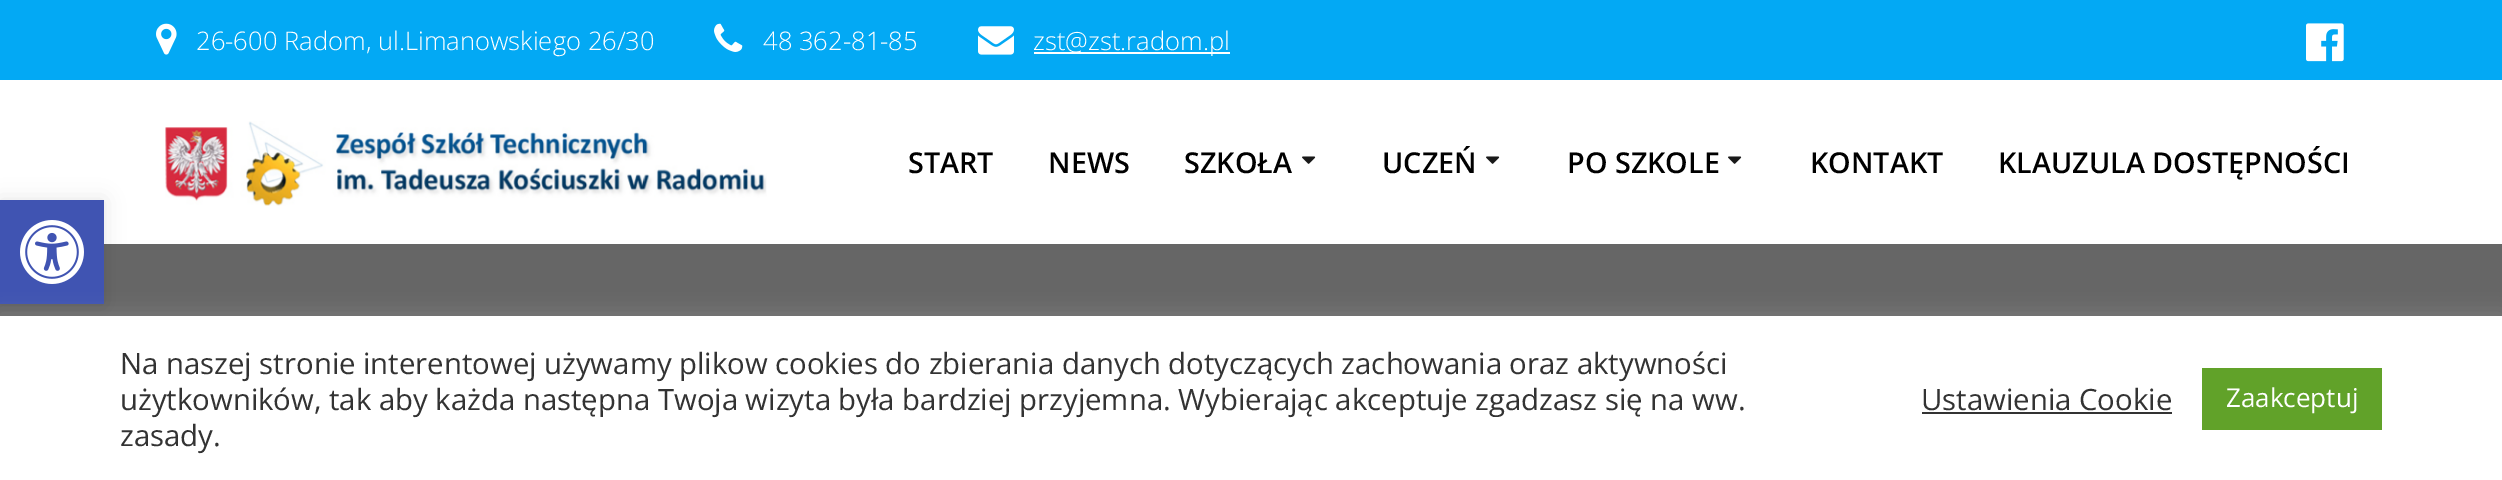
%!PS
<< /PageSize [2502 480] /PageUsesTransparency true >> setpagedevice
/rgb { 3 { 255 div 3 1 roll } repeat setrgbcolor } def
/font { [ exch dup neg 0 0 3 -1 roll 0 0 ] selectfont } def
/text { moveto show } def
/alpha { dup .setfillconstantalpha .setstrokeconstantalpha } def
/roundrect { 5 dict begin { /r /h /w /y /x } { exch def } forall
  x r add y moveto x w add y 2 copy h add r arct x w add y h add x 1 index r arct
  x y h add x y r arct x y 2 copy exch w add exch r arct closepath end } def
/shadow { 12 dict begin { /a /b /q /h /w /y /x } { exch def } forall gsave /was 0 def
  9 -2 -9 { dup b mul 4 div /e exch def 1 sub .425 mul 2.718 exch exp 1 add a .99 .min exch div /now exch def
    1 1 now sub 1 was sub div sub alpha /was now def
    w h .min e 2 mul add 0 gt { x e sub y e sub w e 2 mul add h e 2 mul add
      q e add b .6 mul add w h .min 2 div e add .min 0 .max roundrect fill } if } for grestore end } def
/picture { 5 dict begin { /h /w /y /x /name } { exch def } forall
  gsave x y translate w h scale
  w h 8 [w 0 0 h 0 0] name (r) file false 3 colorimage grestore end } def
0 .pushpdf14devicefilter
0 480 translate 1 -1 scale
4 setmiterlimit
102 102 102 rgb
0 0 2502 480 rectfill
3 169 244 rgb
0 0 2502 80 rectfill
(img_01.rgb) 156 23 21 32 picture
(img_02.rgb) 714 23 29 29 picture
(img_03.rgb) 978 26 36 29 picture
255 255 255 rgb
1034 52 196 2 rectfill
(img_04.rgb) 2306 23 38 39 picture
0 80 2502 164 rectfill
(img_05.rgb) 165 121 602 85 picture
(img_06.rgb) 1302 156 14 8 picture
(img_06.rgb) 1486 156 14 8 picture
(img_06.rgb) 1728 156 14 8 picture
0 0 0 rgb
0 200 104 104 0 10 0.1 shadow
64 84 178 rgb
0 200 104 104 rectfill
(img_07.rgb) 20 220 64 64 picture
172 171 171 rgb
0 314 2502 164 0 10 0.3 shadow
255 255 255 rgb
0 316 2502 164 rectfill
51 51 51 rgb
1922 412 250 2 rectfill
97 162 41 rgb
2202 368 180 62 rectfill
/OpenSans-Light 25.6 font
255 255 255 rgb
(26-600 Radom, ul.Limanowskiego 26/30) 196 50 text
(48 362-81-85) 763 50 text
(zst@zst.radom.pl) 1033 50 text
/OpenSans-SemiBold 28.75 font
0 0 0 rgb
(START) 908 173 text
(NEWS) 1048 173 text
(SZKOŁA) 1184 173 text
(UCZEŃ) 1382 173 text
(PO SZKOLE) 1567 173 text
(KONTAKT) 1810 173 text
(KLAUZULA DOSTĘPNOŚCI) 1998 173 text
/OpenSans-Regular 29.33 font
51 51 51 rgb
(Na naszej stronie interentowej używamy plikow cookies do zbierania danych dotyczących zachowania oraz aktywności) 120 374 text
(użytkowników, tak aby każda następna Twoja wizyta była bardziej przyjemna. Wybierając akceptuje zgadzasz się na ww.) 120 410 text
(zasady.) 120 446 text
(Ustawienia Cookie) 1921 410 text
/OpenSans-Regular 26 font
255 255 255 rgb
(Zaakceptuj) 2226 407 text
.poppdf14devicefilter showpage
